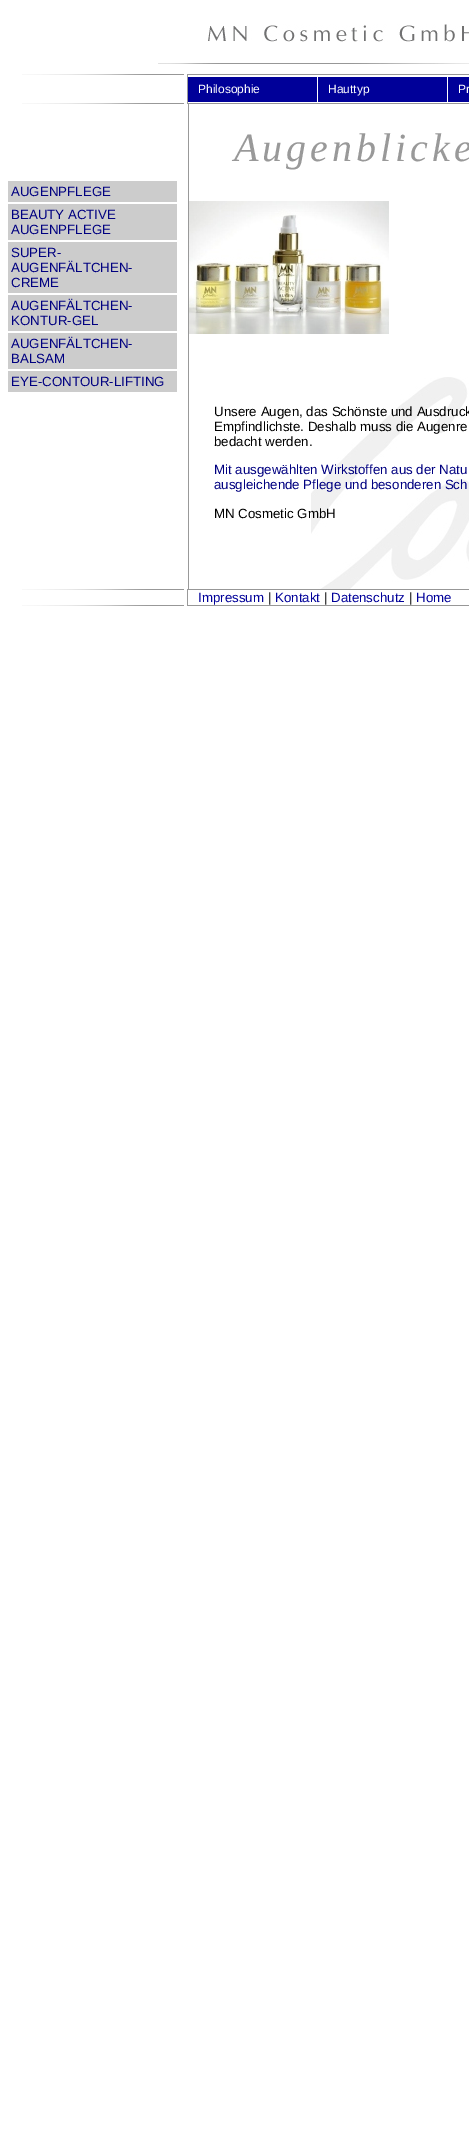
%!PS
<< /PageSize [469 2143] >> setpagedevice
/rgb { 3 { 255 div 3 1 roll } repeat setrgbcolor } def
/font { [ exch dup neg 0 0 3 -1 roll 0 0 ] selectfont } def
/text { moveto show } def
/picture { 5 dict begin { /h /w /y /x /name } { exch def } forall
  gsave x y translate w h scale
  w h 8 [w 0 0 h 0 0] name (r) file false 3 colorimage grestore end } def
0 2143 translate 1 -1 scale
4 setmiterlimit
255 255 255 rgb
0 0 469 2143 rectfill
(img_01.rgb) 208 24 261 18 picture
(img_02.rgb) 158 63 311 1 picture
(img_03.rgb) 22 74 162 1 picture
153 153 153 rgb
187 74 1 30 rectfill
151 151 151 rgb
188 74 281 1 rectfill
0 0 153 rgb
188 77 129 25 rectfill
318 77 129 25 rectfill
448 77 21 25 rectfill
(img_03.rgb) 22 103 162 1 picture
151 151 151 rgb
188 103 281 1 rectfill
204 204 204 rgb
8 181 169 21 rectfill
8 204 169 36 rectfill
8 242 169 51 rectfill
8 295 169 36 rectfill
8 333 169 36 rectfill
8 371 169 21 rectfill
153 153 153 rgb
188 104 1 485 rectfill
(img_04.rgb) 189 201 200 133 picture
(img_05.rgb) 311 377 158 212 picture
(img_03.rgb) 22 589 162 1 picture
187 589 1 17 rectfill
151 151 151 rgb
188 589 281 1 rectfill
(img_03.rgb) 22 605 162 1 picture
188 605 281 1 rectfill
/LiberationSans-Regular 12 font
255 255 255 rgb
(Philosophie) 198 93 text
(Hauttyp) 328 93 text
(Pr) 458 93 text
/LiberationSans-Regular 13.3 font
0 0 128 rgb
(AUGENPFLEGE) 11 196 text
(BEAUTY ACTIVE) 11 219 text
(AUGENPFLEGE) 11 234 text
(SUPER-) 11 257 text
(AUGENFÄLTCHEN-) 11 272 text
(CREME) 11 287 text
(AUGENFÄLTCHEN-) 11 310 text
(KONTUR-GEL) 11 325 text
(AUGENFÄLTCHEN-) 11 348 text
(BALSAM) 11 363 text
(EYE-CONTOUR-LIFTING) 11 386 text
/LiberationSerif-Italic 40 font
153 153 153 rgb
234 161 moveto 4 0 (Augenblicke) ashow
/LiberationSans-Regular 13.3 font
0 0 0 rgb
(Unsere Augen, das Schönste und Ausdruck) 214 416 text
(Empfindlichste. Deshalb muss die Augenre) 214 431 text
(bedacht werden.) 214 446 text
0 0 128 rgb
(Mit ausgewählten Wirkstoffen aus der Natu) 214 474 text
(ausgleichende Pflege und besonderen Sch) 214 489 text
0 0 0 rgb
(MN Cosmetic GmbH) 214 518 text
0 0 153 rgb
(Impressum) 198 602 text
0 0 0 rgb
(|) 268 602 text
0 0 153 rgb
(Kontakt) 275 602 text
0 0 0 rgb
(|) 324 602 text
0 0 153 rgb
(Datenschutz) 331 602 text
0 0 0 rgb
(|) 409 602 text
0 0 153 rgb
(Home) 416 602 text
showpage
